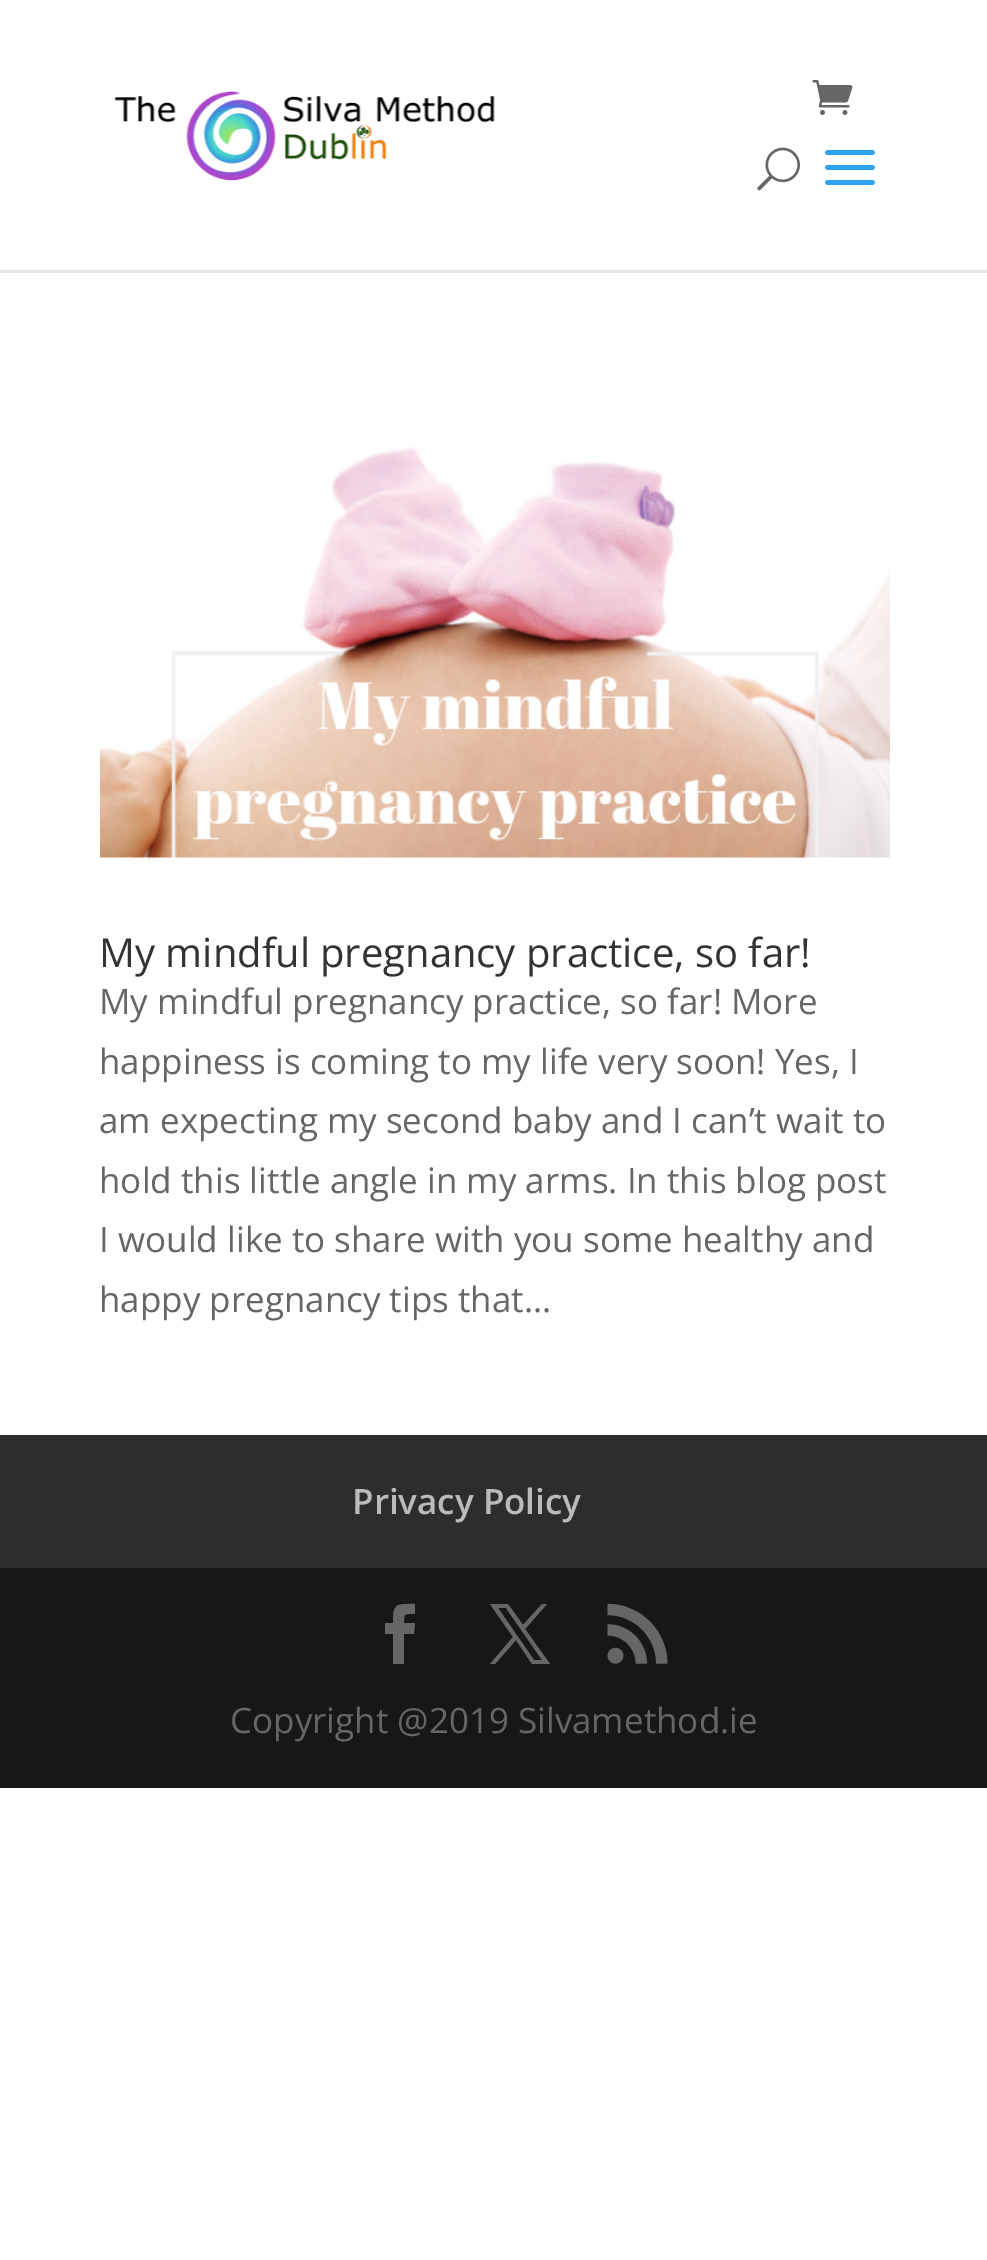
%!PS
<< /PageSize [987 2260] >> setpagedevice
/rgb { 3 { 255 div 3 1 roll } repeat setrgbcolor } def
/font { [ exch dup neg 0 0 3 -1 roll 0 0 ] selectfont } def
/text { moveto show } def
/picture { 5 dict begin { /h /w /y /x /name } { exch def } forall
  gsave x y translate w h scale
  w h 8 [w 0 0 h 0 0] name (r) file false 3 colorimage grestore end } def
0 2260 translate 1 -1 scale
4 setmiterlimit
255 255 255 rgb
0 0 987 2260 rectfill
230 230 230 rgb
0 270 moveto 0 3 rlineto 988 0 rlineto 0 -270 rlineto 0 267 rlineto closepath fill
(img_01.rgb) 114 91 381 90 picture
(img_02.rgb) 812 80 41 35 picture
(img_03.rgb) 757 147 43 44 picture
(img_04.rgb) 825 150 50 35 picture
(img_05.rgb) 100 447 790 411 picture
45 45 45 rgb
0 1435 987 133 rectfill
23 23 23 rgb
0 1568 987 220 rectfill
102 102 102 rgb
393 1664 moveto 11 0 rlineto 0 -30 rlineto 10 0 rlineto 1 -11 rlineto -11 0 rlineto 0 -10 0 -9 11 -9 rcurveto 0 -10 rlineto -19 0 -22 -1 -22 19 rcurveto -8 0 rlineto 0 11 rlineto 8 0 rlineto closepath fill
490 1604 moveto 23 33 rlineto -23 27 rlineto 5 0 rlineto 21 -24 rlineto 16 24 rlineto 18 0 rlineto -25 -35 rlineto 22 -25 rlineto -5 0 rlineto -19 21 rlineto -15 -21 rlineto closepath 498 1608 moveto 8 0 rlineto 36 52 rlineto -8 0 rlineto closepath fill
(img_06.rgb) 607 1603 61 61 picture
/OpenSans-Regular 40 font
51 51 51 rgb
(My mindful pregnancy practice, so far!) 99 967 text
/OpenSans-Regular 35 font
102 102 102 rgb
(My mindful pregnancy practice, so far! More) 99 1014 text
(happiness is coming to my life very soon! Yes, I) 99 1074 text
(am expecting my second baby and I can’t wait to) 99 1133 text
(hold this little angle in my arms. In this blog post) 99 1193 text
(I would like to share with you some healthy and) 99 1252 text
(happy pregnancy tips that...) 99 1312 text
/OpenSans-SemiBold 35 font
187 187 187 rgb
(Privacy Policy) 352 1514 text
/OpenSans-Regular 35 font
102 102 102 rgb
(Copyright @2019 Silvamethod.ie) 230 1733 text
showpage
